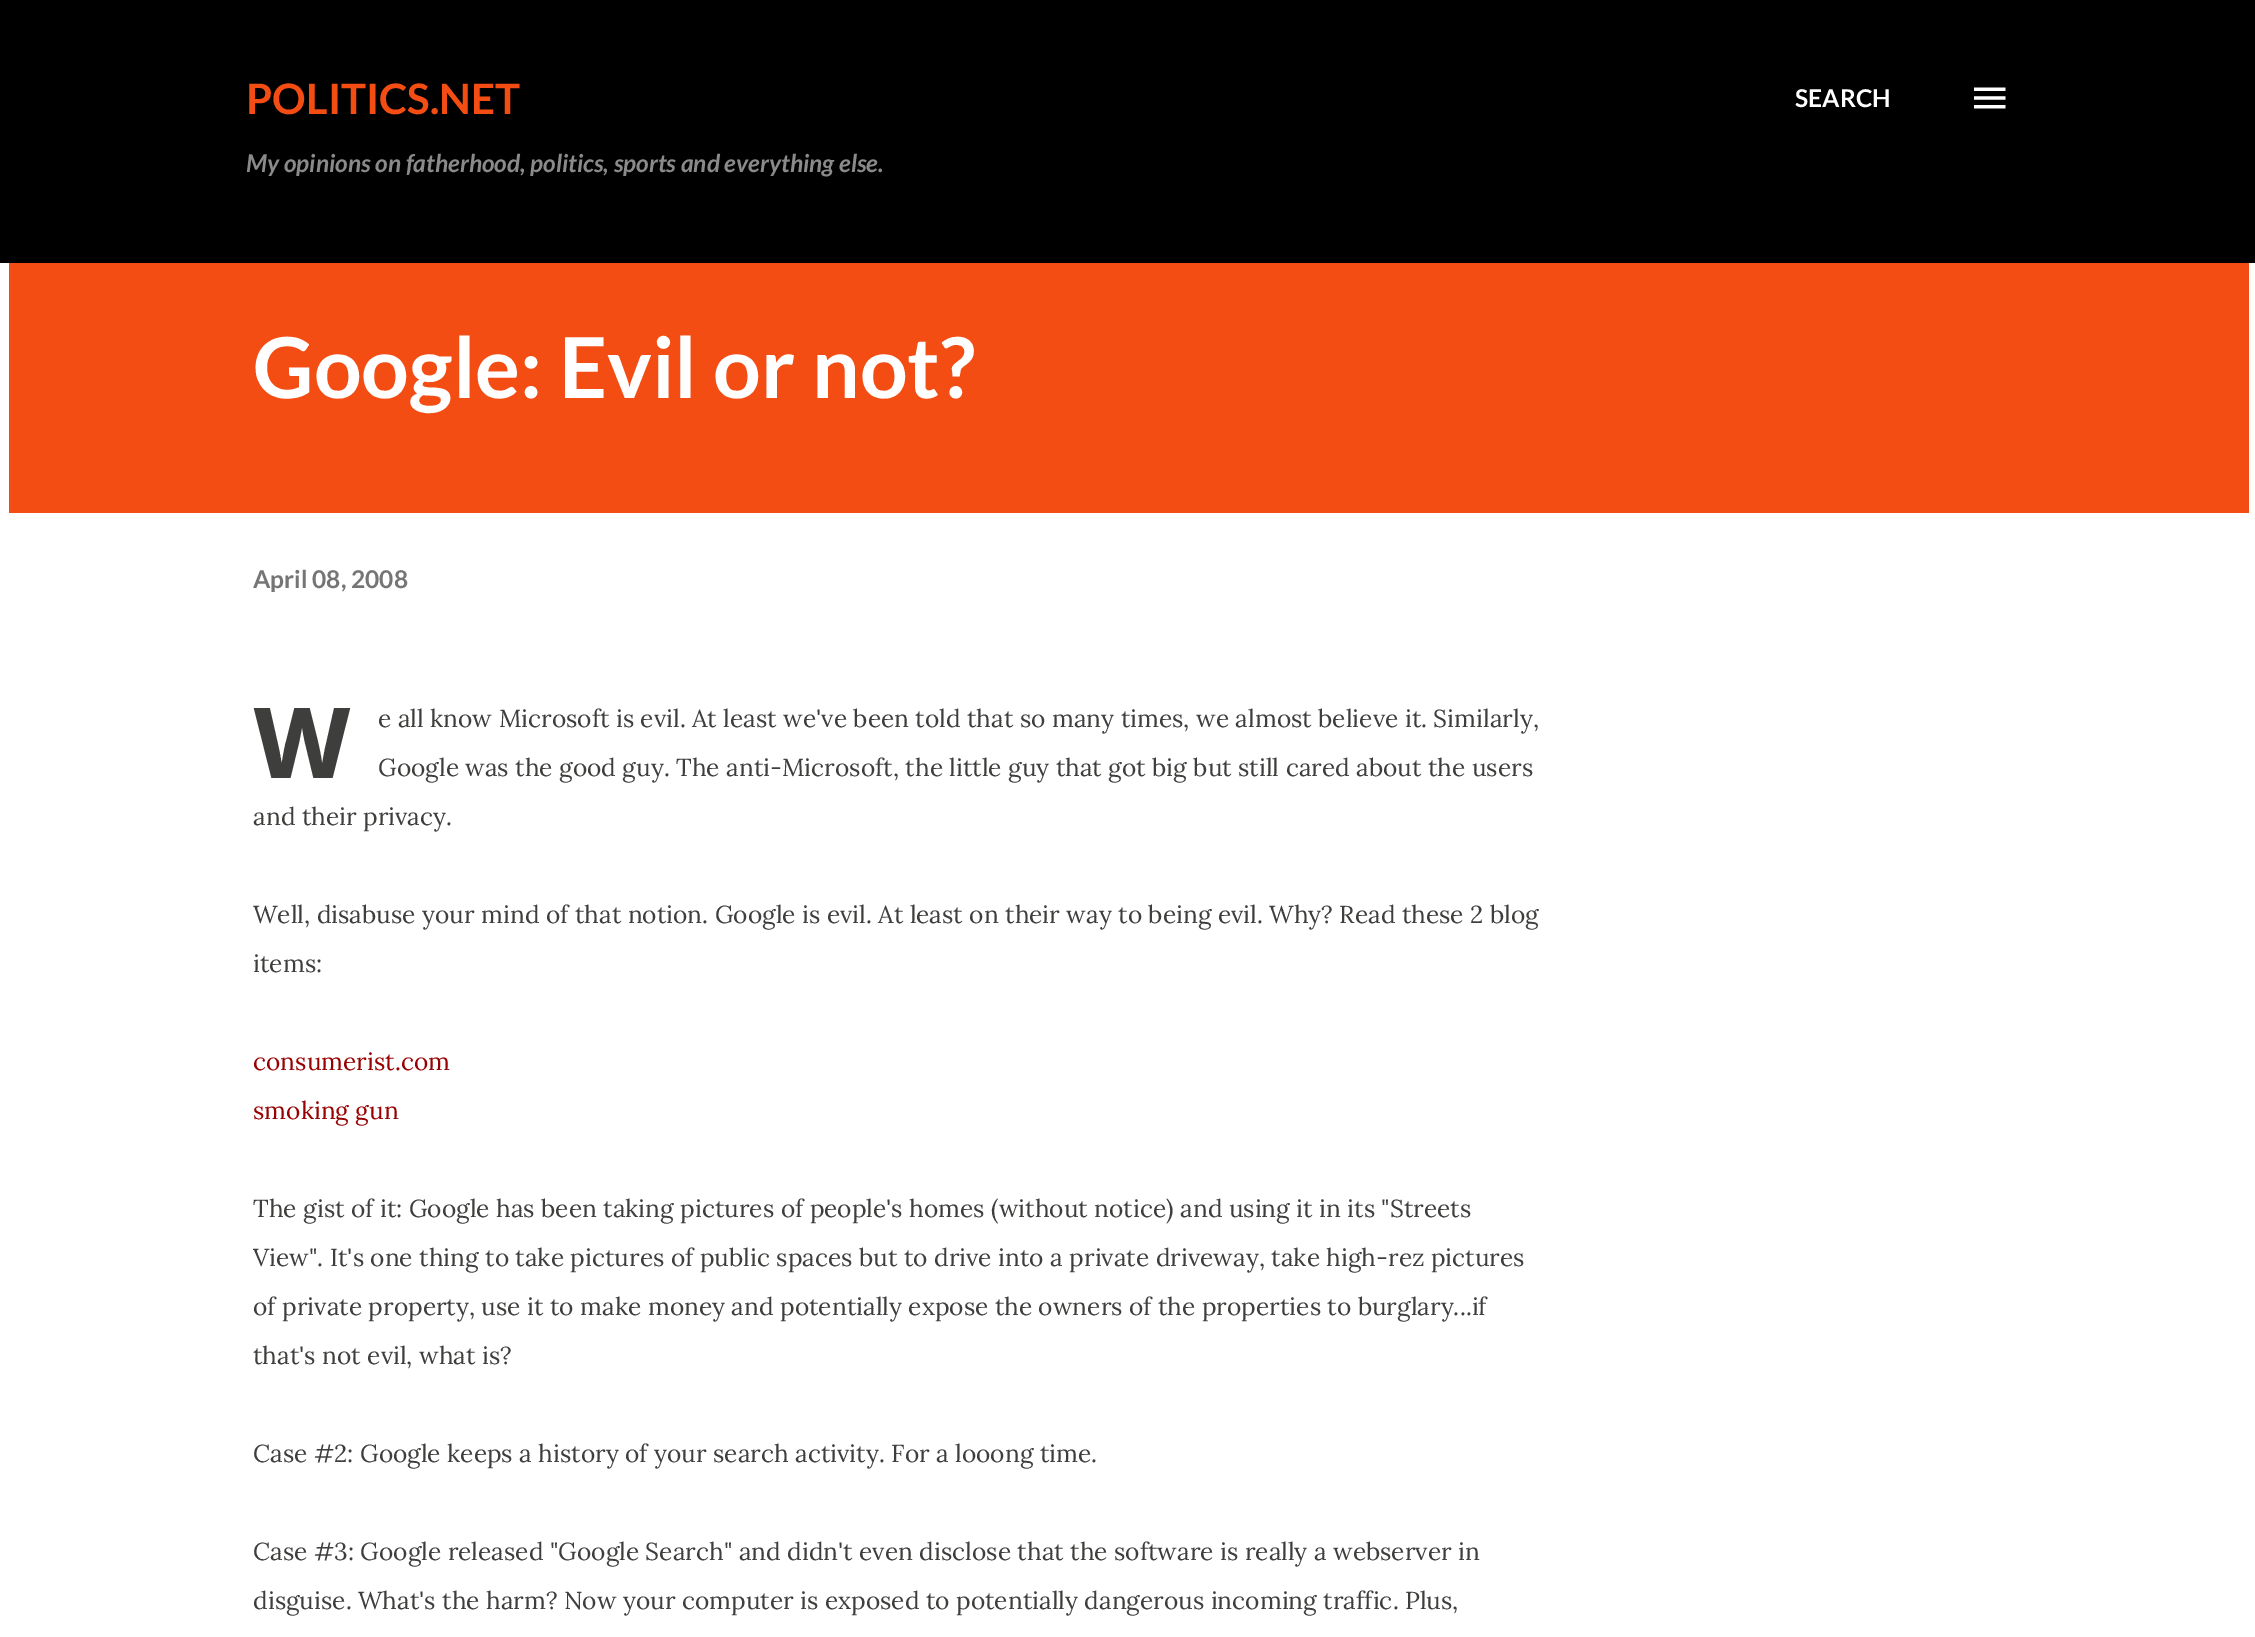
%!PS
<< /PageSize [2255 1637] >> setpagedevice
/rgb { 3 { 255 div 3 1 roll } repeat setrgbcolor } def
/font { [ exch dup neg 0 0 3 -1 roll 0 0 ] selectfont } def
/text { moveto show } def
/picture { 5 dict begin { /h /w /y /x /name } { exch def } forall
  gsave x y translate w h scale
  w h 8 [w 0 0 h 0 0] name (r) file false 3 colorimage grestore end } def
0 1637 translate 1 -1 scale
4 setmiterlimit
255 255 255 rgb
0 0 2255 1637 rectfill
0 0 0 rgb
0 0 2255 263 rectfill
(img_01.rgb) 1974 87 32 22 picture
244 77 20 rgb
9 263 2240 250 rectfill
/Lato-Bold 42 font
(POLITICS.NET) 246 114 text
/Lato-BoldItalic 24.5 font
138 138 138 rgb
(My opinions on fatherhood, politics, sports and everything else.) 246 172 text
/Lato-Bold 24.5 font
255 255 255 rgb
(SEARCH) 1795 107 text
/Lato-Bold 84 font
(Google: Evil or not?) 253 398 text
/Lato-Bold 24.5 font
117 117 117 rgb
(April 08, 2008) 253 588 text
/NotoSans-ExtraBold 98 font
62 63 60 rgb
(W) 253 778 text
/Lora-Regular 24.5 font
(e all know Microsoft is evil. At least we've been told that so many times, we almost believe it. Similarly,) 378 727 text
(Google was the good guy. The anti-Microsoft, the little guy that got big but still cared about the users) 378 776 text
(and their privacy.) 253 825 text
(Well, disabuse your mind of that notion. Google is evil. At least on their way to being evil. Why? Read these 2 blog) 253 923 text
(items:) 253 972 text
151 1 1 rgb
(consumerist.com) 253 1070 text
(smoking gun) 253 1119 text
62 63 60 rgb
(The gist of it: Google has been taking pictures of people's homes \(without notice\) and using it in its "Streets) 253 1217 text
(View". It's one thing to take pictures of public spaces but to drive into a private driveway, take high-rez pictures) 253 1266 text
(of private property, use it to make money and potentially expose the owners of the properties to burglary...if) 253 1315 text
(that's not evil, what is?) 253 1364 text
(Case #2: Google keeps a history of your search activity. For a looong time.) 253 1462 text
(Case #3: Google released "Google Search" and didn't even disclose that the software is really a webserver in) 253 1560 text
(disguise. What's the harm? Now your computer is exposed to potentially dangerous incoming traffic. Plus,) 253 1609 text
showpage
